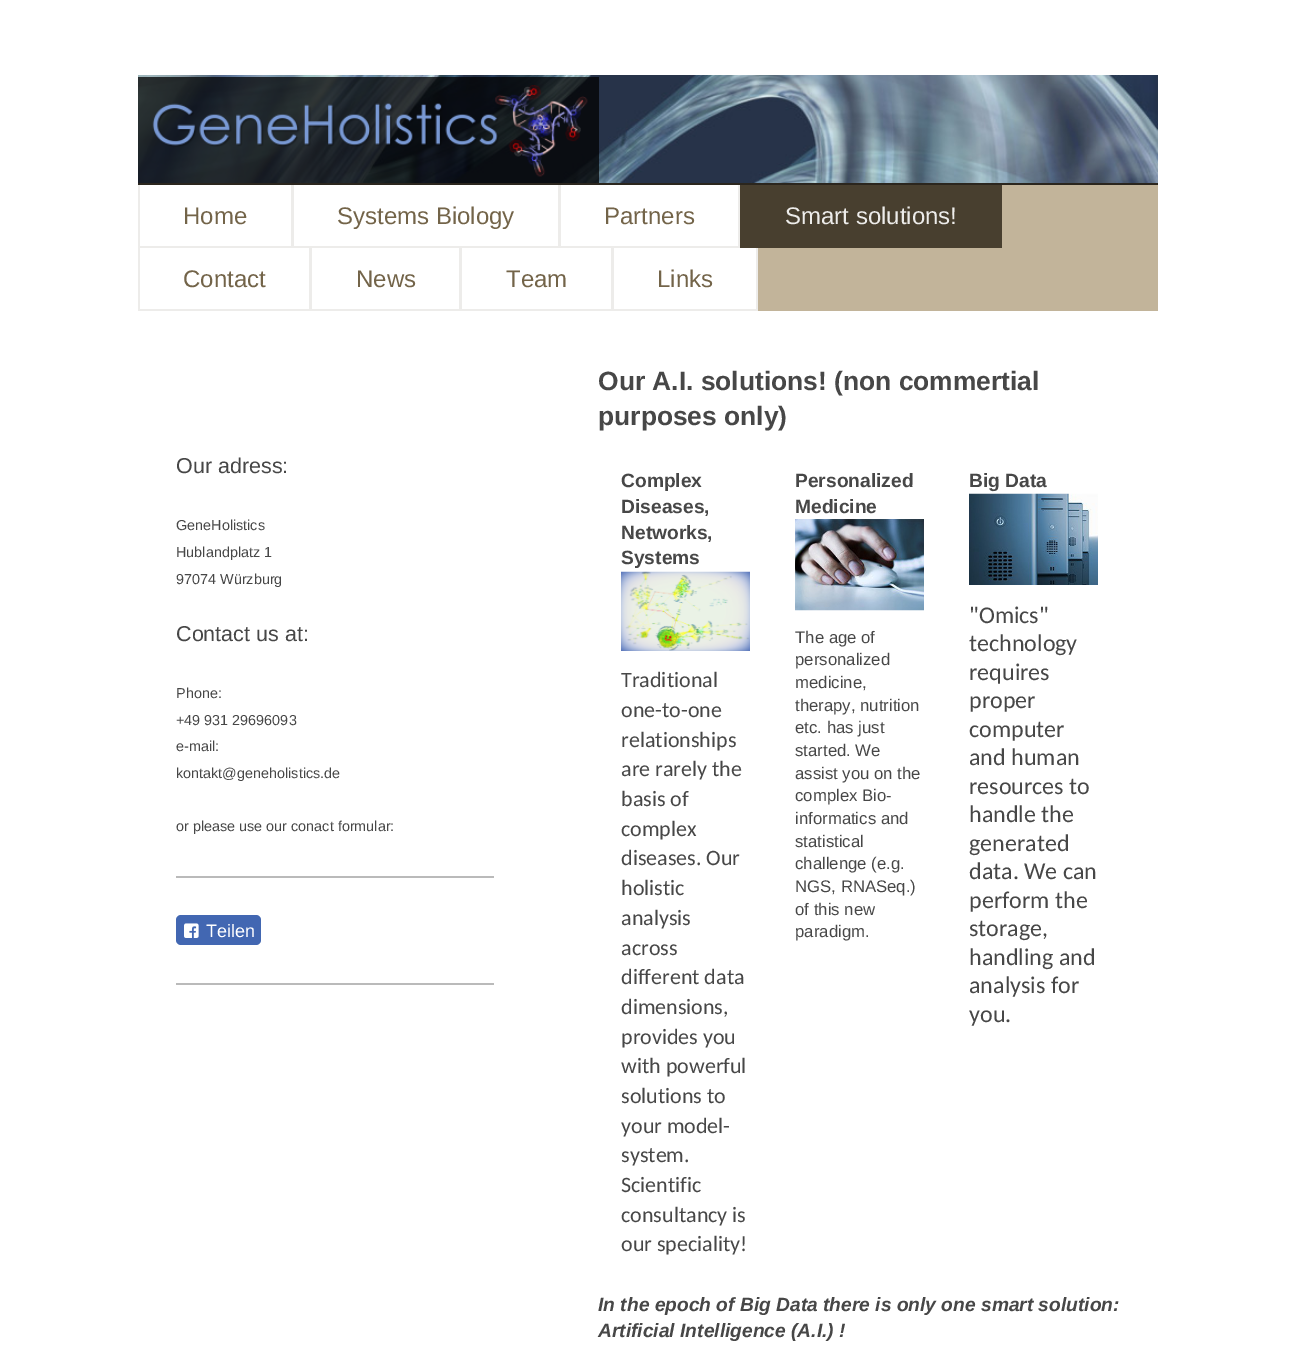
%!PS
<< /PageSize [1296 1349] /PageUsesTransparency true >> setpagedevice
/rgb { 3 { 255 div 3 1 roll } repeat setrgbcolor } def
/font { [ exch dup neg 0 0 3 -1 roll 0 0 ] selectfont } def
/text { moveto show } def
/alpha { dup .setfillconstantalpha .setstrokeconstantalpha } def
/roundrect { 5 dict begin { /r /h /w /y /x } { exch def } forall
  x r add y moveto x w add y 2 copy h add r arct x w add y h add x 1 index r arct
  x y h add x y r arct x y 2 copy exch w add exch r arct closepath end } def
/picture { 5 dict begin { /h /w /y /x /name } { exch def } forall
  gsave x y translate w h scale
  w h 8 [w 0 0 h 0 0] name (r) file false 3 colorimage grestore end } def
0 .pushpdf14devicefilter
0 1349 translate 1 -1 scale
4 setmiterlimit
255 255 255 rgb
0 0 1296 1349 rectfill
(img_01.rgb) 138 75 1020 108 picture
0.75 alpha
0 0 0 rgb
138 77 461 106 rectfill
1 alpha
(img_02.rgb) 152 85 436 92 picture
194 180 154 rgb
758 185 400 126 rectfill
43 38 30 rgb
138 183 1020 2 rectfill
237 236 234 rgb
138 185 602 63 rectfill
255 255 255 rgb
140 185 151 61 rectfill
294 185 264 61 rectfill
561 185 177 61 rectfill
72 63 47 rgb
740 185 262 63 rectfill
237 236 234 rgb
138 248 620 63 rectfill
255 255 255 rgb
140 248 169 61 rectfill
312 248 147 61 rectfill
462 248 149 61 rectfill
614 248 142 61 rectfill
186 186 186 rgb
176 876 318 2 rectfill
66 103 178 rgb
176 915 85 30 5 roundrect fill
(img_03.rgb) 184 923 15 15 picture
186 186 186 rgb
176 983 318 2 rectfill
(img_04.rgb) 621 571 129 80 picture
(img_05.rgb) 795 519 129 92 picture
(img_06.rgb) 969 493 129 92 picture
/LiberationSans-Regular 24 font
115 100 73 rgb
(Home) 183 224 text
(Systems Biology) 337 224 text
(Partners) 604 224 text
237 236 234 rgb
(Smart solutions!) 785 224 text
115 100 73 rgb
(Contact) 183 287 text
(News) 356 287 text
(Team) 506 287 text
(Links) 657 287 text
/LiberationSans-Regular 21.5 font
71 71 71 rgb
(Our adress:) 176 473 text
/LiberationSans-Regular 14.4 font
(GeneHolistics) 176 530 text
(Hublandplatz 1) 176 557 text
(97074 Würzburg) 176 584 text
/LiberationSans-Regular 21.5 font
(Contact us at:) 176 641 text
/LiberationSans-Regular 14.4 font
(Phone:) 176 698 text
(+49 931 29696093) 176 725 text
(e-mail:) 176 751 text
(kontakt@geneholistics.de) 176 778 text
(or please use our conact formular:) 176 831 text
/LiberationSans-Regular 18 font
255 255 255 rgb
(Teilen) 206 937 text
/LiberationSans-Bold 26.4 font
71 71 71 rgb
(Our A.I. solutions! \(non commertial) 598 390 text
(purposes only\)) 598 425 text
/LiberationSans-Bold 19.2 font
(Complex) 621 487 text
(Diseases,) 621 513 text
(Networks,) 621 539 text
(Systems) 621 564 text
/Carlito-Regular 22 font
(Traditional) 621 687 text
(one-to-one) 621 717 text
(relationships) 621 747 text
(are rarely the) 621 776 text
(basis of) 621 806 text
(complex) 621 836 text
(diseases. Our) 621 865 text
(holistic) 621 895 text
(analysis) 621 925 text
(across) 621 955 text
(different data) 621 984 text
(dimensions,) 621 1014 text
(provides you) 621 1044 text
(with powerful) 621 1073 text
(solutions to) 621 1103 text
(your model-) 621 1133 text
(system.) 621 1162 text
(Scientific) 621 1192 text
(consultancy is) 621 1222 text
(our speciality!) 621 1251 text
/LiberationSans-Bold 19.2 font
(Personalized) 795 487 text
(Medicine) 795 513 text
/LiberationSans-Regular 16.75 font
(The age of) 795 643 text
(personalized) 795 665 text
(medicine,) 795 688 text
(therapy, nutrition) 795 711 text
(etc. has just) 795 733 text
(started. We) 795 756 text
(assist you on the) 795 779 text
(complex Bio-) 795 801 text
(informatics and) 795 824 text
(statistical) 795 847 text
(challenge \(e.g.) 795 869 text
(NGS, RNASeq.\)) 795 892 text
(of this new) 795 915 text
(paradigm.) 795 937 text
/LiberationSans-Bold 19.2 font
(Big Data) 969 487 text
/Carlito-Regular 24 font
("Omics") 969 623 text
(technology) 969 651 text
(requires) 969 680 text
(proper) 969 708 text
(computer) 969 737 text
(and human) 969 765 text
(resources to) 969 794 text
(handle the) 969 822 text
(generated) 969 851 text
(data. We can) 969 879 text
(perform the) 969 908 text
(storage,) 969 936 text
(handling and) 969 965 text
(analysis for) 969 993 text
(you.) 969 1022 text
/LiberationSans-BoldItalic 19.2 font
(In the epoch of Big Data there is only one smart solution:) 598 1311 text
(Artificial Intelligence \(A.I.\) !) 598 1337 text
.poppdf14devicefilter showpage
